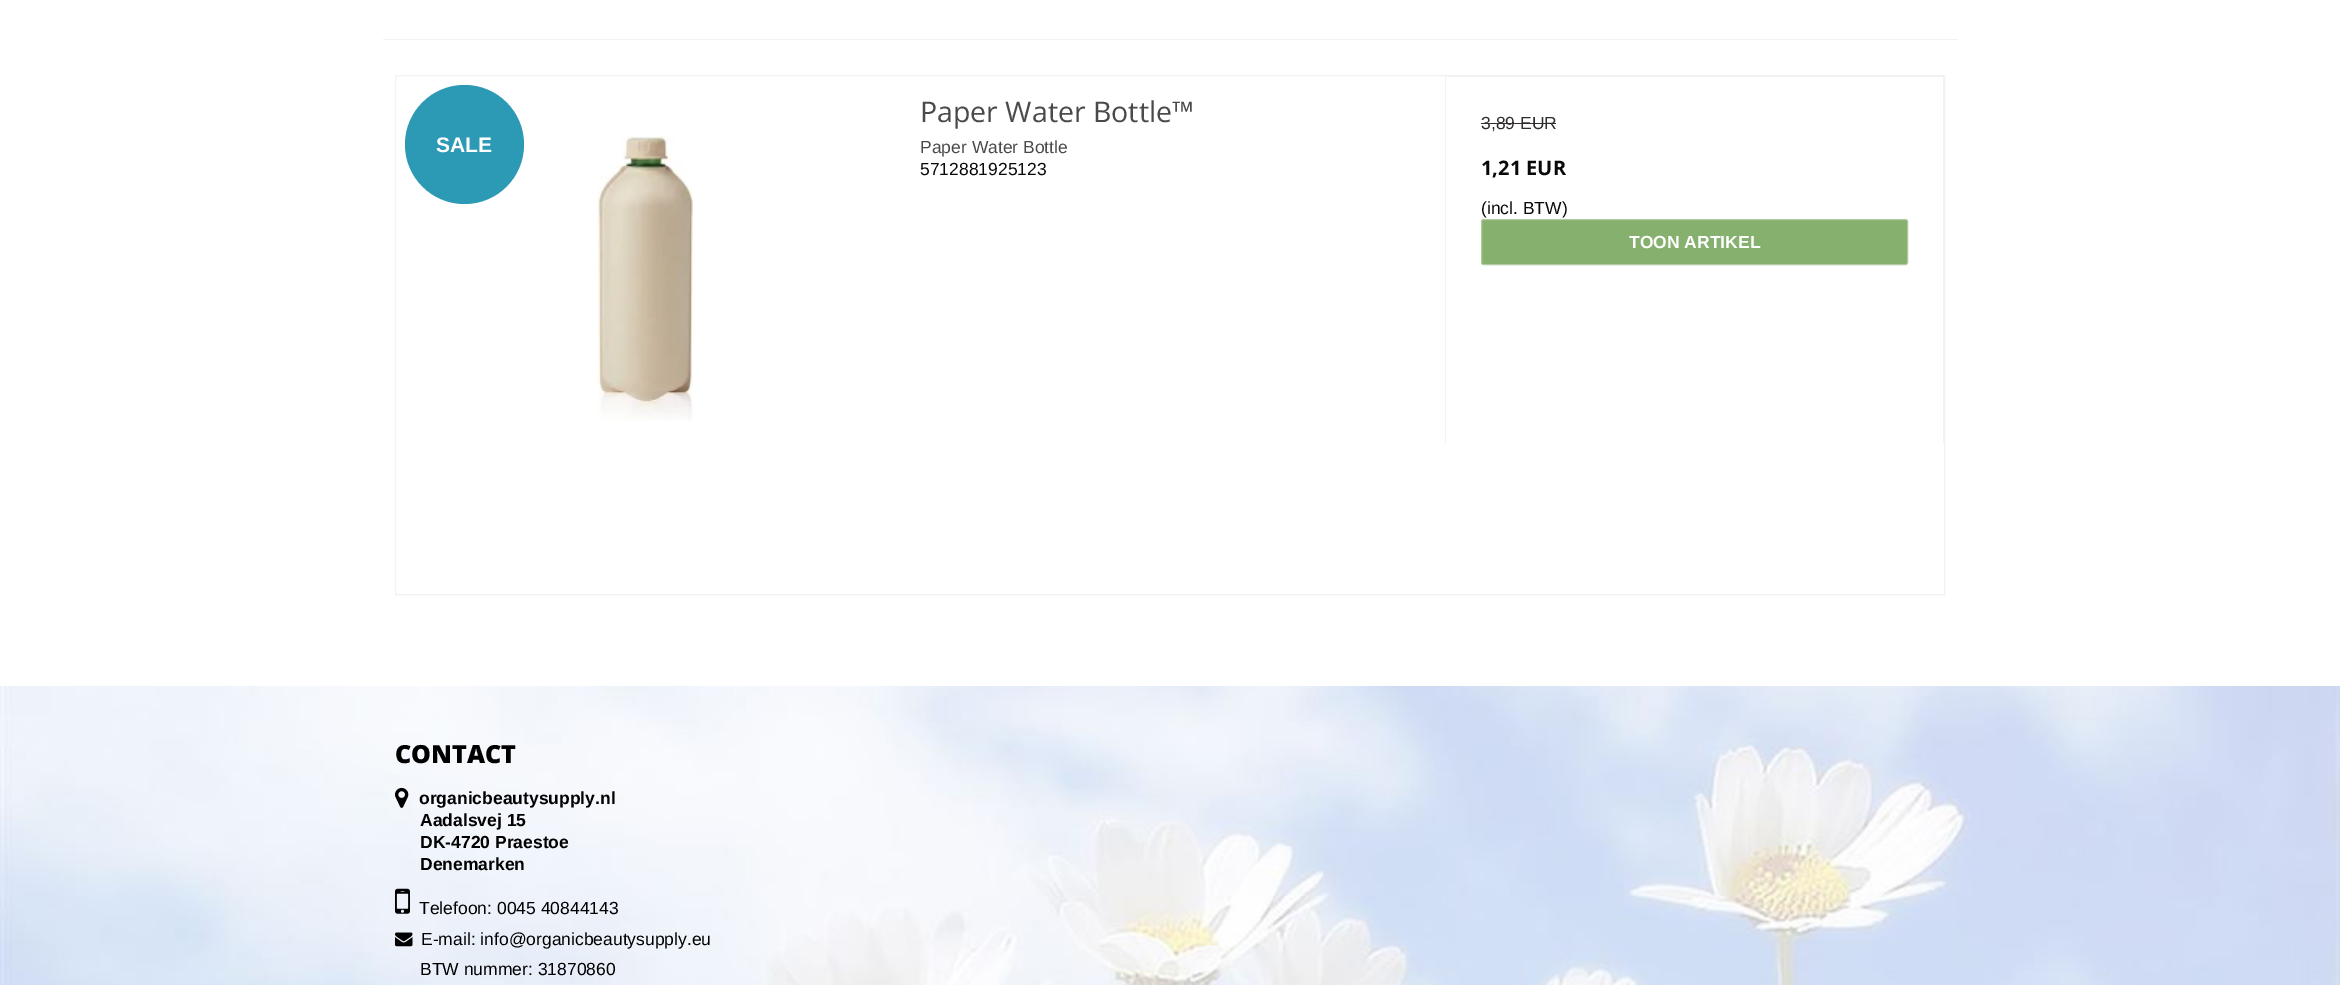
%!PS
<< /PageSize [2340 985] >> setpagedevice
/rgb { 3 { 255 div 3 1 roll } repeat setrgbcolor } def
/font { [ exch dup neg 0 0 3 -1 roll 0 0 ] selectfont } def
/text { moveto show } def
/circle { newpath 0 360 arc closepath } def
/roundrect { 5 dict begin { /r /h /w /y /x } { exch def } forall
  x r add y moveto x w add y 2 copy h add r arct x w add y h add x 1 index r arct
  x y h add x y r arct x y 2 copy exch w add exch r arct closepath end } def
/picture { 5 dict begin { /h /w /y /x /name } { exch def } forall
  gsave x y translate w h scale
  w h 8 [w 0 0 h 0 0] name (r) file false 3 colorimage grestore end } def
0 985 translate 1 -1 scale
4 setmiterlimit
255 255 255 rgb
0 0 2340 985 rectfill
242 242 242 rgb
383 39 1575 1 rectfill
395.5 75.5 1549 519 rectstroke
44 154 181 rgb
464.5 144.5 59.5 circle fill
(img_01.rgb) 597 135 96 286 picture
242 242 242 rgb
1445 76 499 1 rectfill
1943 76 1 367 rectfill
1445 76 1 367 rectfill
50 45 45 rgb
1481 123 75 1 rectfill
134 176 109 rgb
1481.5 219.5 426 45 2 roundrect gsave fill grestore
175 203 159 rgb
stroke
(img_02.rgb) 0 686 2340 299 picture
(img_03.rgb) 395 787 14 21 picture
(img_04.rgb) 395 888 15 26 picture
(img_05.rgb) 395 932 18 15 picture
/LiberationSans-Bold 21 font
255 255 255 rgb
(SALE) 436 152 text
/OpenSans-Regular 28.5 font
74 74 74 rgb
(Paper Water Bottle™) 920 122 text
/LiberationSans-Regular 17.5 font
(Paper Water Bottle) 920 153 text
10 9 9 rgb
(5712881925123) 920 175 text
50 45 45 rgb
(3,89 EUR) 1481 129 text
/OpenSans-Bold 20 font
10 9 9 rgb
(1,21 EUR) 1481 175 text
/LiberationSans-Regular 17.5 font
(\(incl. BTW\)) 1481 214 text
/LiberationSans-Bold 17.5 font
255 255 255 rgb
(TOON ARTIKEL) 1629 248 text
/OpenSans-ExtraBold 25 font
0 0 0 rgb
(CONTACT) 395 763 text
/LiberationSans-Bold 17.5 font
(organicbeautysupply.nl) 419 804 text
(Aadalsvej 15) 420 826 text
(DK-4720 Praestoe) 420 848 text
(Denemarken) 420 870 text
/LiberationSans-Regular 17.5 font
(Telefoon: 0045 40844143) 419 914 text
(E-mail: info@organicbeautysupply.eu) 421 945 text
(BTW nummer: 31870860) 420 975 text
showpage
